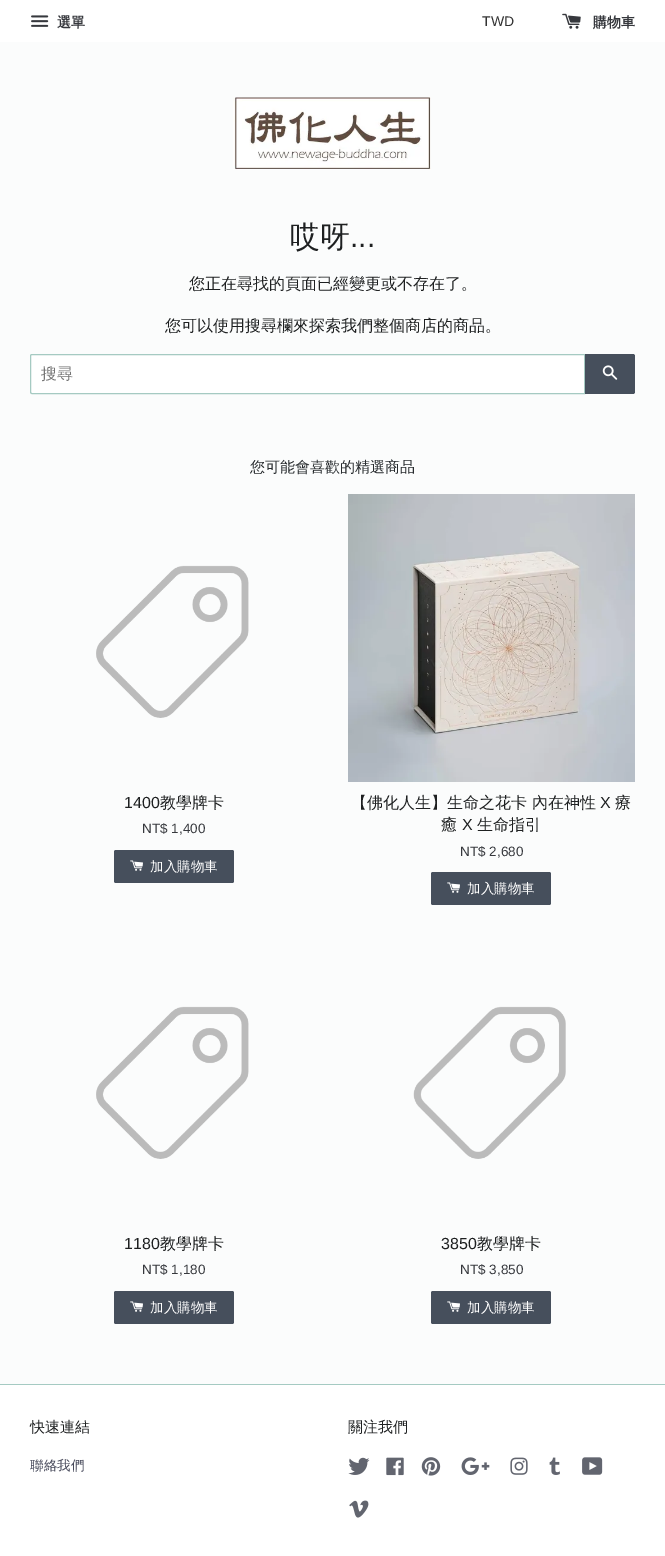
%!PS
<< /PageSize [665 1556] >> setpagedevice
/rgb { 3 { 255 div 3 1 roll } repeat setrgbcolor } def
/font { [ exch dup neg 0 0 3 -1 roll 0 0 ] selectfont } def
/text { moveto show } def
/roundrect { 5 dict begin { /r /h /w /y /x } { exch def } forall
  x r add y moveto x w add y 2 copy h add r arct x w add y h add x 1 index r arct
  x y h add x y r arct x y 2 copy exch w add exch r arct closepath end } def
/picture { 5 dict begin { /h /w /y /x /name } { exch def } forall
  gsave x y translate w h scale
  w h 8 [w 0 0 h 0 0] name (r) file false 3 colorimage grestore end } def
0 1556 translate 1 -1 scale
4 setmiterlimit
255 255 255 rgb
0 0 665 1556 rectfill
(img_01.rgb) 31 15 18 12 picture
(img_02.rgb) 562 13 19 16 picture
251 252 252 rgb
0 42 665 1342 rectfill
(img_03.rgb) 233 97 198 73 picture
255 255 255 rgb
32 354.5 moveto 552.5 0 rlineto 0 39 rlineto -552.5 0 rlineto -1 0 -1.5 -0.5 -1.5 -1.5 rcurveto 0 -36 rlineto 0 -1 0.5 -1.5 1.5 -1.5 rcurveto closepath gsave fill grestore
165 202 194 rgb
stroke
70 79 92 rgb
585 354 moveto 48 0 rlineto 1 0 2 1 2 2 rcurveto 0 36 rlineto 0 1 -1 2 -2 2 rcurveto -48 0 rlineto closepath fill
(img_04.rgb) 602 365 16 15 picture
(img_05.rgb) 96 565 153 153 picture
114 850 120 33 2 roundrect fill
(img_06.rgb) 130 860 13 11 picture
(img_07.rgb) 348 494 287 288 picture
431 872 120 33 2 roundrect fill
(img_06.rgb) 447 882 13 11 picture
(img_05.rgb) 96 1006 153 153 picture
114 1291 120 33 2 roundrect fill
(img_06.rgb) 130 1301 13 11 picture
(img_08.rgb) 413 1006 153 153 picture
431 1291 120 33 2 roundrect fill
(img_06.rgb) 447 1301 13 11 picture
165 202 194 rgb
0 1384 665 1 rectfill
(img_09.rgb) 348 1457 22 18 picture
(img_10.rgb) 386 1457 18 19 picture
(img_11.rgb) 421 1457 20 19 picture
(img_12.rgb) 461 1457 29 18 picture
(img_13.rgb) 510 1457 18 18 picture
(img_14.rgb) 549 1457 11 18 picture
(img_15.rgb) 582 1457 21 18 picture
(img_16.rgb) 349 1500 20 18 picture
/WenQuanYiZenHei-Bold 14 font
54 56 61 rgb
(選單) 57 27 text
/LiberationSans-Regular 14 font
51 51 51 rgb
(TWD) 482 26 text
/WenQuanYiZenHei-Bold 14 font
54 56 61 rgb
(購物車) 593 27 text
/WenQuanYiZenHei-Medium 30 font
30 32 33 rgb
(哎呀) 290 247 text
/LiberationSans-Regular 30 font
(...) 350 247 text
/WenQuanYiZenHei-Medium 16 font
(您正在尋找的頁面已經變更或不存在了。) 189 289 text
(您可以使用搜尋欄來探索我們整個商店的商品。) 165 331 text
117 117 117 rgb
(搜尋) 41 379 text
/WenQuanYiZenHei-Medium 15 font
39 43 46 rgb
(您可能會喜歡的精選商品) 250 472 text
/LiberationSans-Regular 16 font
30 32 33 rgb
(1400) 124 808 text
/WenQuanYiZenHei-Medium 16 font
(教學牌卡) 160 808 text
/LiberationSans-Regular 13.5 font
54 56 61 rgb
(NT$ 1,400) 142 833 text
/WenQuanYiZenHei-Medium 13.5 font
255 255 255 rgb
(加入購物車) 150 871 text
/WenQuanYiZenHei-Medium 16 font
30 32 33 rgb
(【佛化人生】生命之花卡 內在神性) 351 808 text
/LiberationSans-Regular 16 font
(X) 600 808 text
/WenQuanYiZenHei-Medium 16 font
(療) 615 808 text
(癒) 441 830 text
/LiberationSans-Regular 16 font
(X) 462 830 text
/WenQuanYiZenHei-Medium 16 font
(生命指引) 477 830 text
/LiberationSans-Regular 13.5 font
54 56 61 rgb
(NT$ 2,680) 460 856 text
/WenQuanYiZenHei-Medium 13.5 font
255 255 255 rgb
(加入購物車) 467 893 text
/LiberationSans-Regular 16 font
30 32 33 rgb
(1180) 124 1249 text
/WenQuanYiZenHei-Medium 16 font
(教學牌卡) 160 1249 text
/LiberationSans-Regular 13.5 font
54 56 61 rgb
(NT$ 1,180) 142 1274 text
/WenQuanYiZenHei-Medium 13.5 font
255 255 255 rgb
(加入購物車) 150 1312 text
/LiberationSans-Regular 16 font
30 32 33 rgb
(3850) 441 1249 text
/WenQuanYiZenHei-Medium 16 font
(教學牌卡) 477 1249 text
/LiberationSans-Regular 13.5 font
54 56 61 rgb
(NT$ 3,850) 460 1274 text
/WenQuanYiZenHei-Medium 13.5 font
255 255 255 rgb
(加入購物車) 467 1312 text
/WenQuanYiZenHei-Medium 15 font
30 32 33 rgb
(快速連結) 30 1432 text
/WenQuanYiZenHei-Medium 13.5 font
70 72 89 rgb
(聯絡我們) 30 1470 text
/WenQuanYiZenHei-Medium 15 font
30 32 33 rgb
(關注我們) 348 1432 text
showpage
